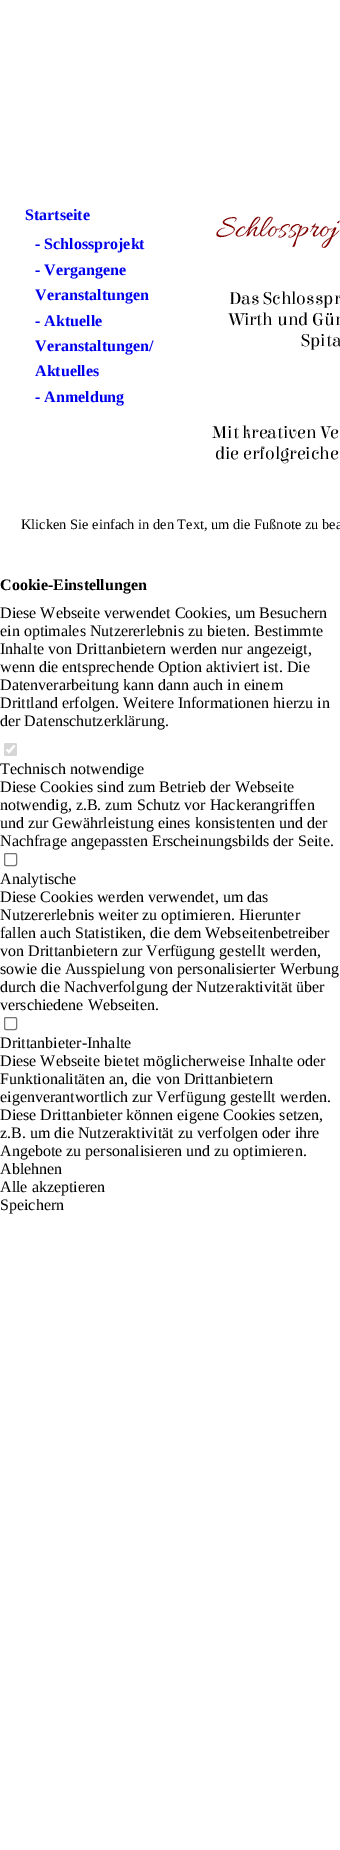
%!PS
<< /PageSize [340 1850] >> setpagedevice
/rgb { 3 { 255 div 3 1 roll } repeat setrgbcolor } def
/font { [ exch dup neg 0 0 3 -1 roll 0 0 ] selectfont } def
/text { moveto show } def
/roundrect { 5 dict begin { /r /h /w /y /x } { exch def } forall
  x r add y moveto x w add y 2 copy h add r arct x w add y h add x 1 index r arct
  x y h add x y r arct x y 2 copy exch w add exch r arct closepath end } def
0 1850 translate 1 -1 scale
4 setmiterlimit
255 255 255 rgb
0 0 340 1850 rectfill
214 214 214 rgb
4 743 13 13 2 roundrect fill
255 255 255 rgb
2.1 setlinewidth
6.5 749.5 moveto 2.5 2.5 rlineto 5.5 -6.5 rlineto stroke
118 118 118 rgb
1 setlinewidth
4.5 853.5 12 12 1.5 roundrect stroke
4.5 1017.5 12 12 1.5 roundrect stroke
/LiberationSerif-Bold 16 font
0 0 238 rgb
(Startseite) 25 220 text
(- Schlossprojekt) 35 249 text
(- Vergangene) 35 275 text
(Veranstaltungen) 35 300 text
(- Aktuelle) 35 326 text
(Veranstaltungen/) 35 351 text
(Aktuelles) 35 376 text
(- Anmeldung) 35 402 text
/Allura-Regular 32 font
128 0 0 rgb
(Schlossproj) 216 236 text
/Elsie-Regular 18 font
0 0 0 rgb
(Das Schlosspr) 229 304 text
(Wirth und Gün) 229 325 text
(Spita) 301 346 text
(Mit kreativen Ve) 212 438 text
(die erfolgreiche) 215 459 text
/LiberationSerif-Regular 14.4 font
(Klicken Sie einfach in den Text, um die Fußnote zu bea) 21 529 text
/LiberationSerif-Bold 16 font
(Cookie-Einstellungen) 0 590 text
/LiberationSerif-Regular 16 font
(Diese Webseite verwendet Cookies, um Besuchern) 0 618 text
(ein optimales Nutzererlebnis zu bieten. Bestimmte) 0 636 text
(Inhalte von Drittanbietern werden nur angezeigt,) 0 654 text
(wenn die entsprechende Option aktiviert ist. Die) 0 672 text
(Datenverarbeitung kann dann auch in einem) 0 690 text
(Drittland erfolgen. Weitere Informationen hierzu in) 0 708 text
(der Datenschutzerklärung.) 0 726 text
(Technisch notwendige) 0 774 text
(Diese Cookies sind zum Betrieb der Webseite) 0 792 text
(notwendig, z.B. zum Schutz vor Hackerangriffen) 0 810 text
(und zur Gewährleistung eines konsistenten und der) 0 828 text
(Nachfrage angepassten Erscheinungsbilds der Seite.) 0 846 text
(Analytische) 0 884 text
(Diese Cookies werden verwendet, um das) 0 902 text
(Nutzererlebnis weiter zu optimieren. Hierunter) 0 920 text
(fallen auch Statistiken, die dem Webseitenbetreiber) 0 938 text
(von Drittanbietern zur Verfügung gestellt werden,) 0 956 text
(sowie die Ausspielung von personalisierter Werbung) 0 974 text
(durch die Nachverfolgung der Nutzeraktivität über) 0 992 text
(verschiedene Webseiten.) 0 1010 text
(Drittanbieter-Inhalte) 0 1048 text
(Diese Webseite bietet möglicherweise Inhalte oder) 0 1066 text
(Funktionalitäten an, die von Drittanbietern) 0 1084 text
(eigenverantwortlich zur Verfügung gestellt werden.) 0 1102 text
(Diese Drittanbieter können eigene Cookies setzen,) 0 1120 text
(z.B. um die Nutzeraktivität zu verfolgen oder ihre) 0 1138 text
(Angebote zu personalisieren und zu optimieren.) 0 1156 text
(Ablehnen) 0 1174 text
(Alle akzeptieren) 0 1192 text
(Speichern) 0 1210 text
showpage
